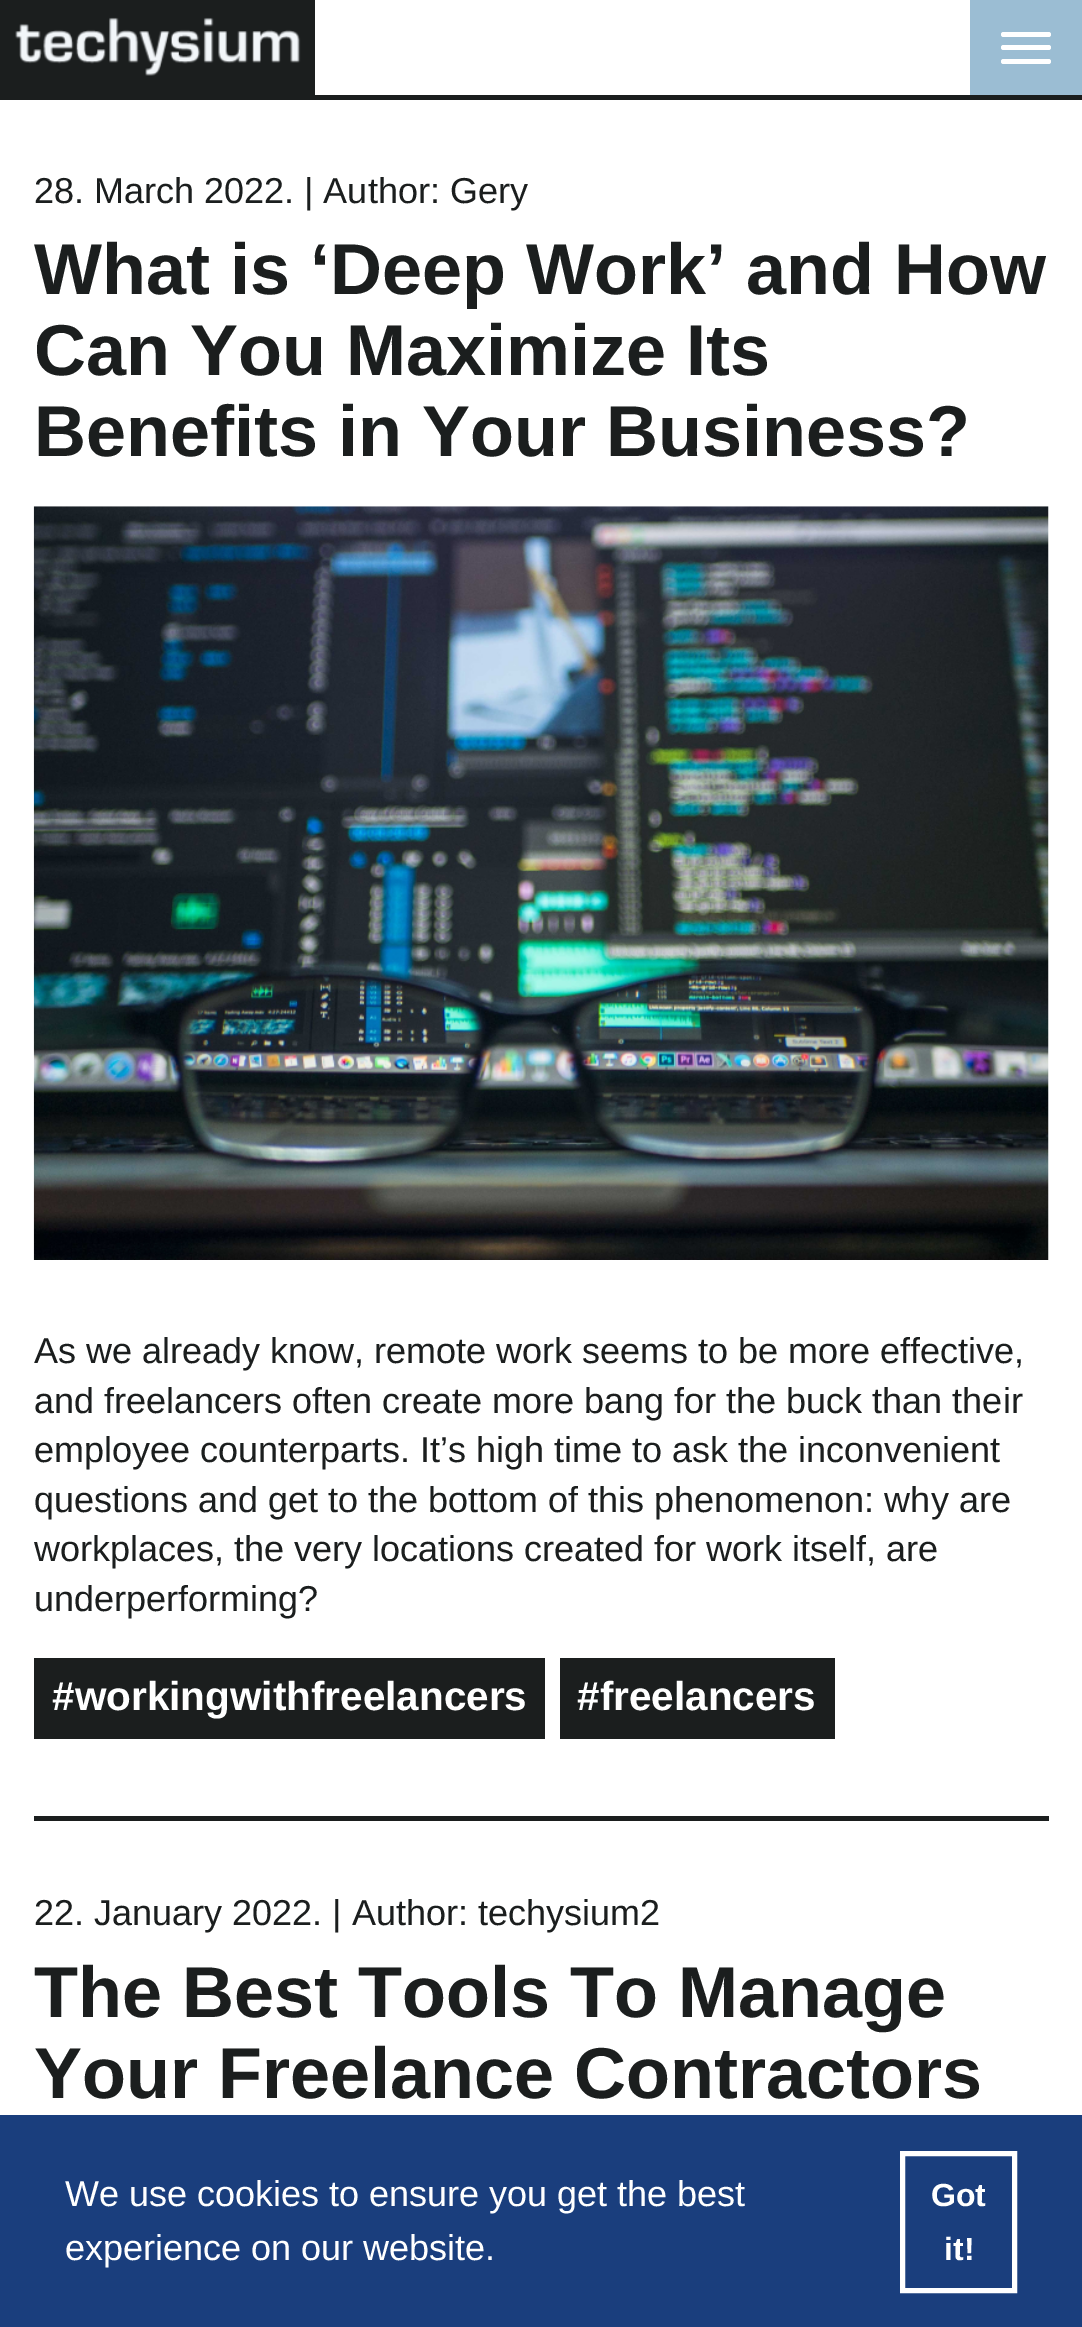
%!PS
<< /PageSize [1082 2327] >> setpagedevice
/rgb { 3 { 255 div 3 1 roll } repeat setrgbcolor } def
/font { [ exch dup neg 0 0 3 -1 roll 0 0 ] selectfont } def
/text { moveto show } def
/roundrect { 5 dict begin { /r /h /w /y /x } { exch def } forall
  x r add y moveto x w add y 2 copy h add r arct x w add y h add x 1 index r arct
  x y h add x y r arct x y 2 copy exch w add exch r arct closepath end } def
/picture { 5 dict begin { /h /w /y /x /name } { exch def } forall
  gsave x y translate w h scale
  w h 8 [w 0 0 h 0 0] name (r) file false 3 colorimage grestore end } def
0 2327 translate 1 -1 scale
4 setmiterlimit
255 255 255 rgb
0 0 1082 2327 rectfill
27 30 30 rgb
0 95 1082 5 rectfill
0 0 315 95 rectfill
155 189 211 rgb
970 0 112 95 rectfill
255 255 255 rgb
1001 32 50 5 2.5 roundrect fill
1001 45 50 5 2.5 roundrect fill
1001 59 50 5 2.5 roundrect fill
(img_01.rgb) 15 17 286 59 picture
(img_02.rgb) 33 506 1016 754 picture
27 30 30 rgb
34 1658 511 81 rectfill
560 1658 275 81 rectfill
34 1816 1015 5 rectfill
26 62 125 rgb
0 2115 1082 212 rectfill
255 255 255 rgb
5 setlinewidth
902.5 2153.5 112 137 rectstroke
/LiberationSans-Regular 36 font
27 30 30 rgb
(28. March 2022. | Author: Gery) 34 203 text
/LiberationSans-Bold 72 font
(What is ‘Deep Work’ and How) 34 294 text
(Can You Maximize Its) 34 375 text
(Benefits in Your Business?) 34 456 text
/LiberationSans-Regular 36 font
(As we already know, remote work seems to be more effective,) 34 1363 text
(and freelancers often create more bang for the buck than their) 34 1413 text
(employee counterparts. It’s high time to ask the inconvenient) 34 1462 text
(questions and get to the bottom of this phenomenon: why are) 34 1512 text
(workplaces, the very locations created for work itself, are) 34 1561 text
(underperforming?) 34 1611 text
/LiberationSans-Bold 40.5 font
255 255 255 rgb
(#workingwithfreelancers) 52 1710 text
(#freelancers) 577 1710 text
/LiberationSans-Regular 36 font
27 30 30 rgb
(22. January 2022. | Author: techysium2) 34 1925 text
/LiberationSans-Bold 72 font
(The Best Tools To Manage) 34 2017 text
(Your Freelance Contractors) 34 2098 text
/LiberationSans-Regular 36 font
255 255 255 rgb
(We use cookies to ensure you get the best) 65 2206 text
(experience on our website.) 65 2260 text
/LiberationSans-Bold 32 font
(Got) 931 2206 text
(it!) 944 2260 text
showpage
